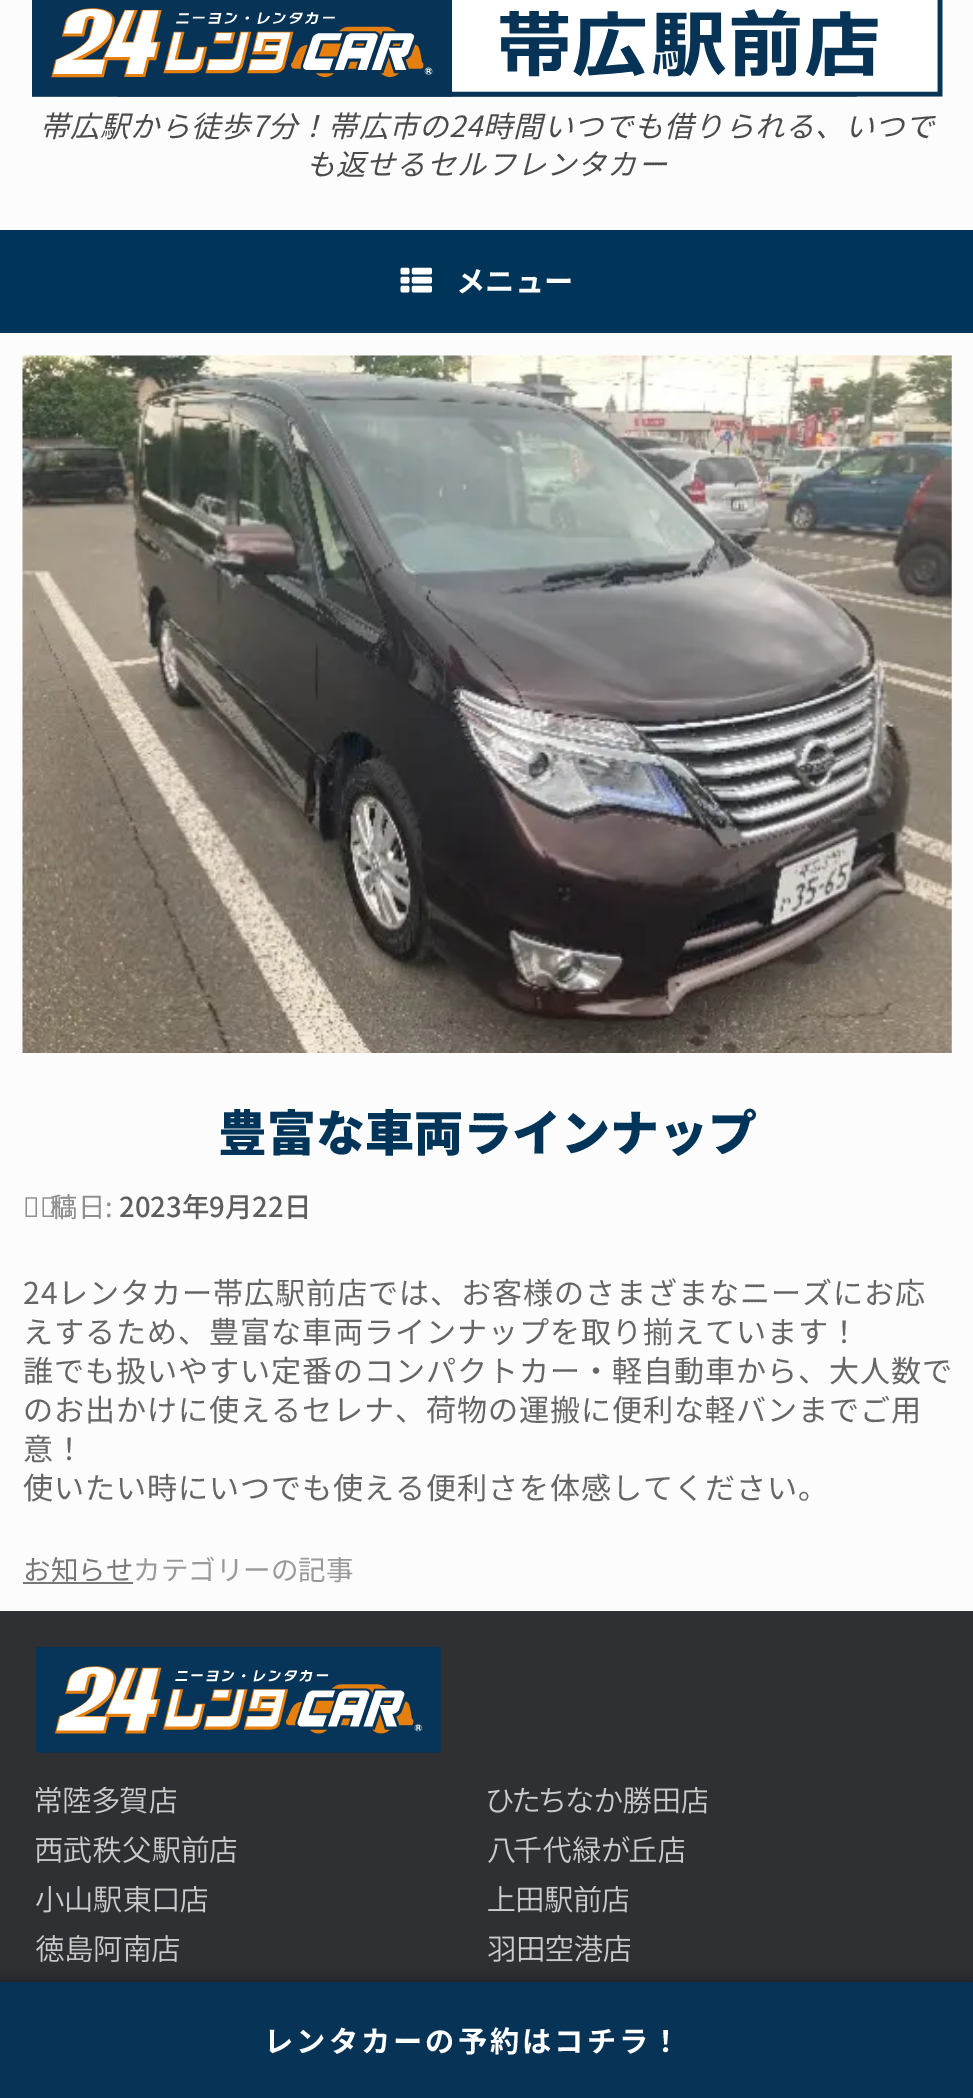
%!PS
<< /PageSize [973 2098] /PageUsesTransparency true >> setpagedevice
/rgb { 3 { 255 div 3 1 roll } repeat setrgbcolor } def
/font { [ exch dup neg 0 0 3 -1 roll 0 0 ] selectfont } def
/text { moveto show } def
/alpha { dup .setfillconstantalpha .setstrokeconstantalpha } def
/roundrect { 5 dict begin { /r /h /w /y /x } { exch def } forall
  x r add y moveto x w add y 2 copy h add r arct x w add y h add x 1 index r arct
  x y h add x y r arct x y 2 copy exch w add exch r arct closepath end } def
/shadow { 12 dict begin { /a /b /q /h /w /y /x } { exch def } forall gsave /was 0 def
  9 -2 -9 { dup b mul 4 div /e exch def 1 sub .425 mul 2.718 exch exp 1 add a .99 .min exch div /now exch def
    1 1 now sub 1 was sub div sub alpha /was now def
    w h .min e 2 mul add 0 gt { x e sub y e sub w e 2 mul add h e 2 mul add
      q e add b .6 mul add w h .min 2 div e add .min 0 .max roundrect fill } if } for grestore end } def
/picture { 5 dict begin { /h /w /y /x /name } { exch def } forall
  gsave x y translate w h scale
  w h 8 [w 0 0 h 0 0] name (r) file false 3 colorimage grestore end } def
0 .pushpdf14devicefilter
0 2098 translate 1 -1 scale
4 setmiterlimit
47 48 51 rgb
0 0 973 2098 rectfill
252 252 252 rgb
0 0 973 230 rectfill
(img_01.rgb) 32 0 911 97 picture
0 52 89 rgb
0 230 973 103 rectfill
(img_02.rgb) 400 267 32 26 picture
252 252 252 rgb
0 333 973 1278 rectfill
(img_03.rgb) 22 355 930 698 picture
119 119 119 rgb
23 1582 110 2 rectfill
(img_04.rgb) 36 1647 405 106 picture
(img_05.rgb) 36 1787 140 27 picture
(img_06.rgb) 488 1787 219 27 picture
(img_07.rgb) 36 1836 200 27 picture
(img_08.rgb) 488 1836 196 27 picture
(img_09.rgb) 36 1886 171 27 picture
(img_10.rgb) 488 1886 140 27 picture
(img_11.rgb) 36 1935 143 27 picture
(img_12.rgb) 488 1935 142 27 picture
0 0 0 rgb
0 1982 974 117 0 7 0.4 shadow
6 51 86 rgb
0 1982 973 116 rectfill
/NotoSansJP-Italic 29.25 font
75 75 75 rgb
40 137 moveto 0.9 0 (帯広駅から徒歩7分！帯広市の24時間いつでも借りられる、いつで) ashow
306 175 moveto 0.9 0 (も返せるセルフレンタカー) ashow
/NotoSansJP-Bold 29.25 font
255 255 255 rgb
(メニュー) 456 292 text
/NotoSansJP-Black 49 font
0 52 89 rgb
(豊富な車両ラインナップ) 218 1151 text
/NotoSans-Regular 27.5 font
143 143 143 rgb
(投) 23 1217 text
/NotoSansJP-Regular 27.5 font
(稿日:) 50 1217 text
/NotoSansJP-Medium 27.5 font
94 94 94 rgb
(2023年9月22日) 119 1217 text
/NotoSansJP-Regular 30.1 font
102 102 102 rgb
23 1304 moveto 0.9 0 (24レンタカー帯広駅前店では、お客様のさまざまなニーズにお応) ashow
23 1343 moveto 0.9 0 (えするため、豊富な車両ラインナップを取り揃えています！) ashow
23 1382 moveto 0.9 0 (誰でも扱いやすい定番のコンパクトカー・軽自動車から、大人数で) ashow
23 1421 moveto 0.9 0 (のお出かけに使えるセレナ、荷物の運搬に便利な軽バンまでご用) ashow
23 1460 moveto 0.9 0 (意！) ashow
23 1499 moveto 0.9 0 (使いたい時にいつでも使える便利さを体感してください。) ashow
/NotoSansJP-Regular 27.5 font
119 119 119 rgb
(お知らせ) 23 1580 text
153 153 153 rgb
(カテゴリーの記事) 133 1580 text
/NotoSansJP-Bold 29.25 font
255 255 255 rgb
264 2052 moveto 3 0 (レンタカーの予約はコチラ！) ashow
.poppdf14devicefilter showpage
